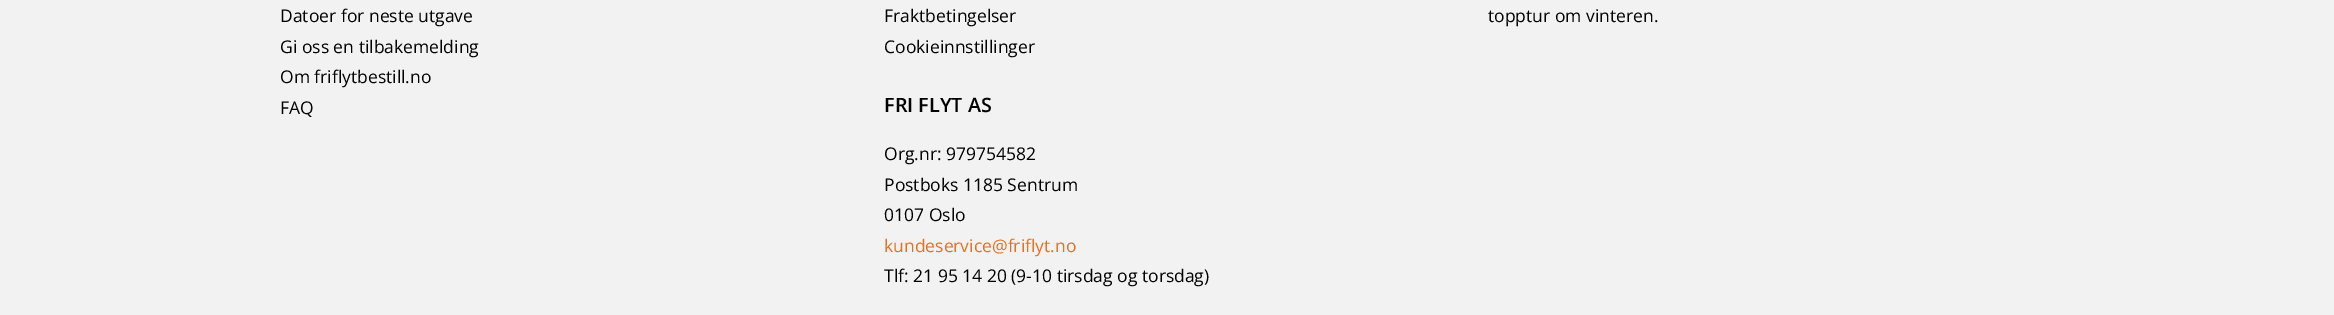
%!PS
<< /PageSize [2334 315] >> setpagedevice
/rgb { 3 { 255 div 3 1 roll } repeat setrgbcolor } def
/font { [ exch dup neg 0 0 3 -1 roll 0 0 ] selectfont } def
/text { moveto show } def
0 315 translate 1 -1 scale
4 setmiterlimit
242 242 242 rgb
0 0 2334 315 rectfill
/OpenSans-Regular 17.5 font
0 0 0 rgb
(Datoer for neste utgave) 280 22 text
(Gi oss en tilbakemelding) 280 53 text
(Om friflytbestill.no) 280 83 text
(FAQ) 280 114 text
(Fraktbetingelser) 884 22 text
(Cookieinnstillinger) 884 53 text
/OpenSans-SemiBold 19.75 font
(FRI FLYT AS) 884 112 text
/OpenSans-Regular 17.5 font
(Org.nr: 979754582) 884 160 text
(Postboks 1185 Sentrum) 884 191 text
(0107 Oslo) 884 221 text
227 114 34 rgb
(kundeservice@friflyt.no) 884 252 text
0 0 0 rgb
(Tlf: 21 95 14 20 \(9-10 tirsdag og torsdag\)) 884 282 text
(topptur om vinteren.) 1488 22 text
showpage
